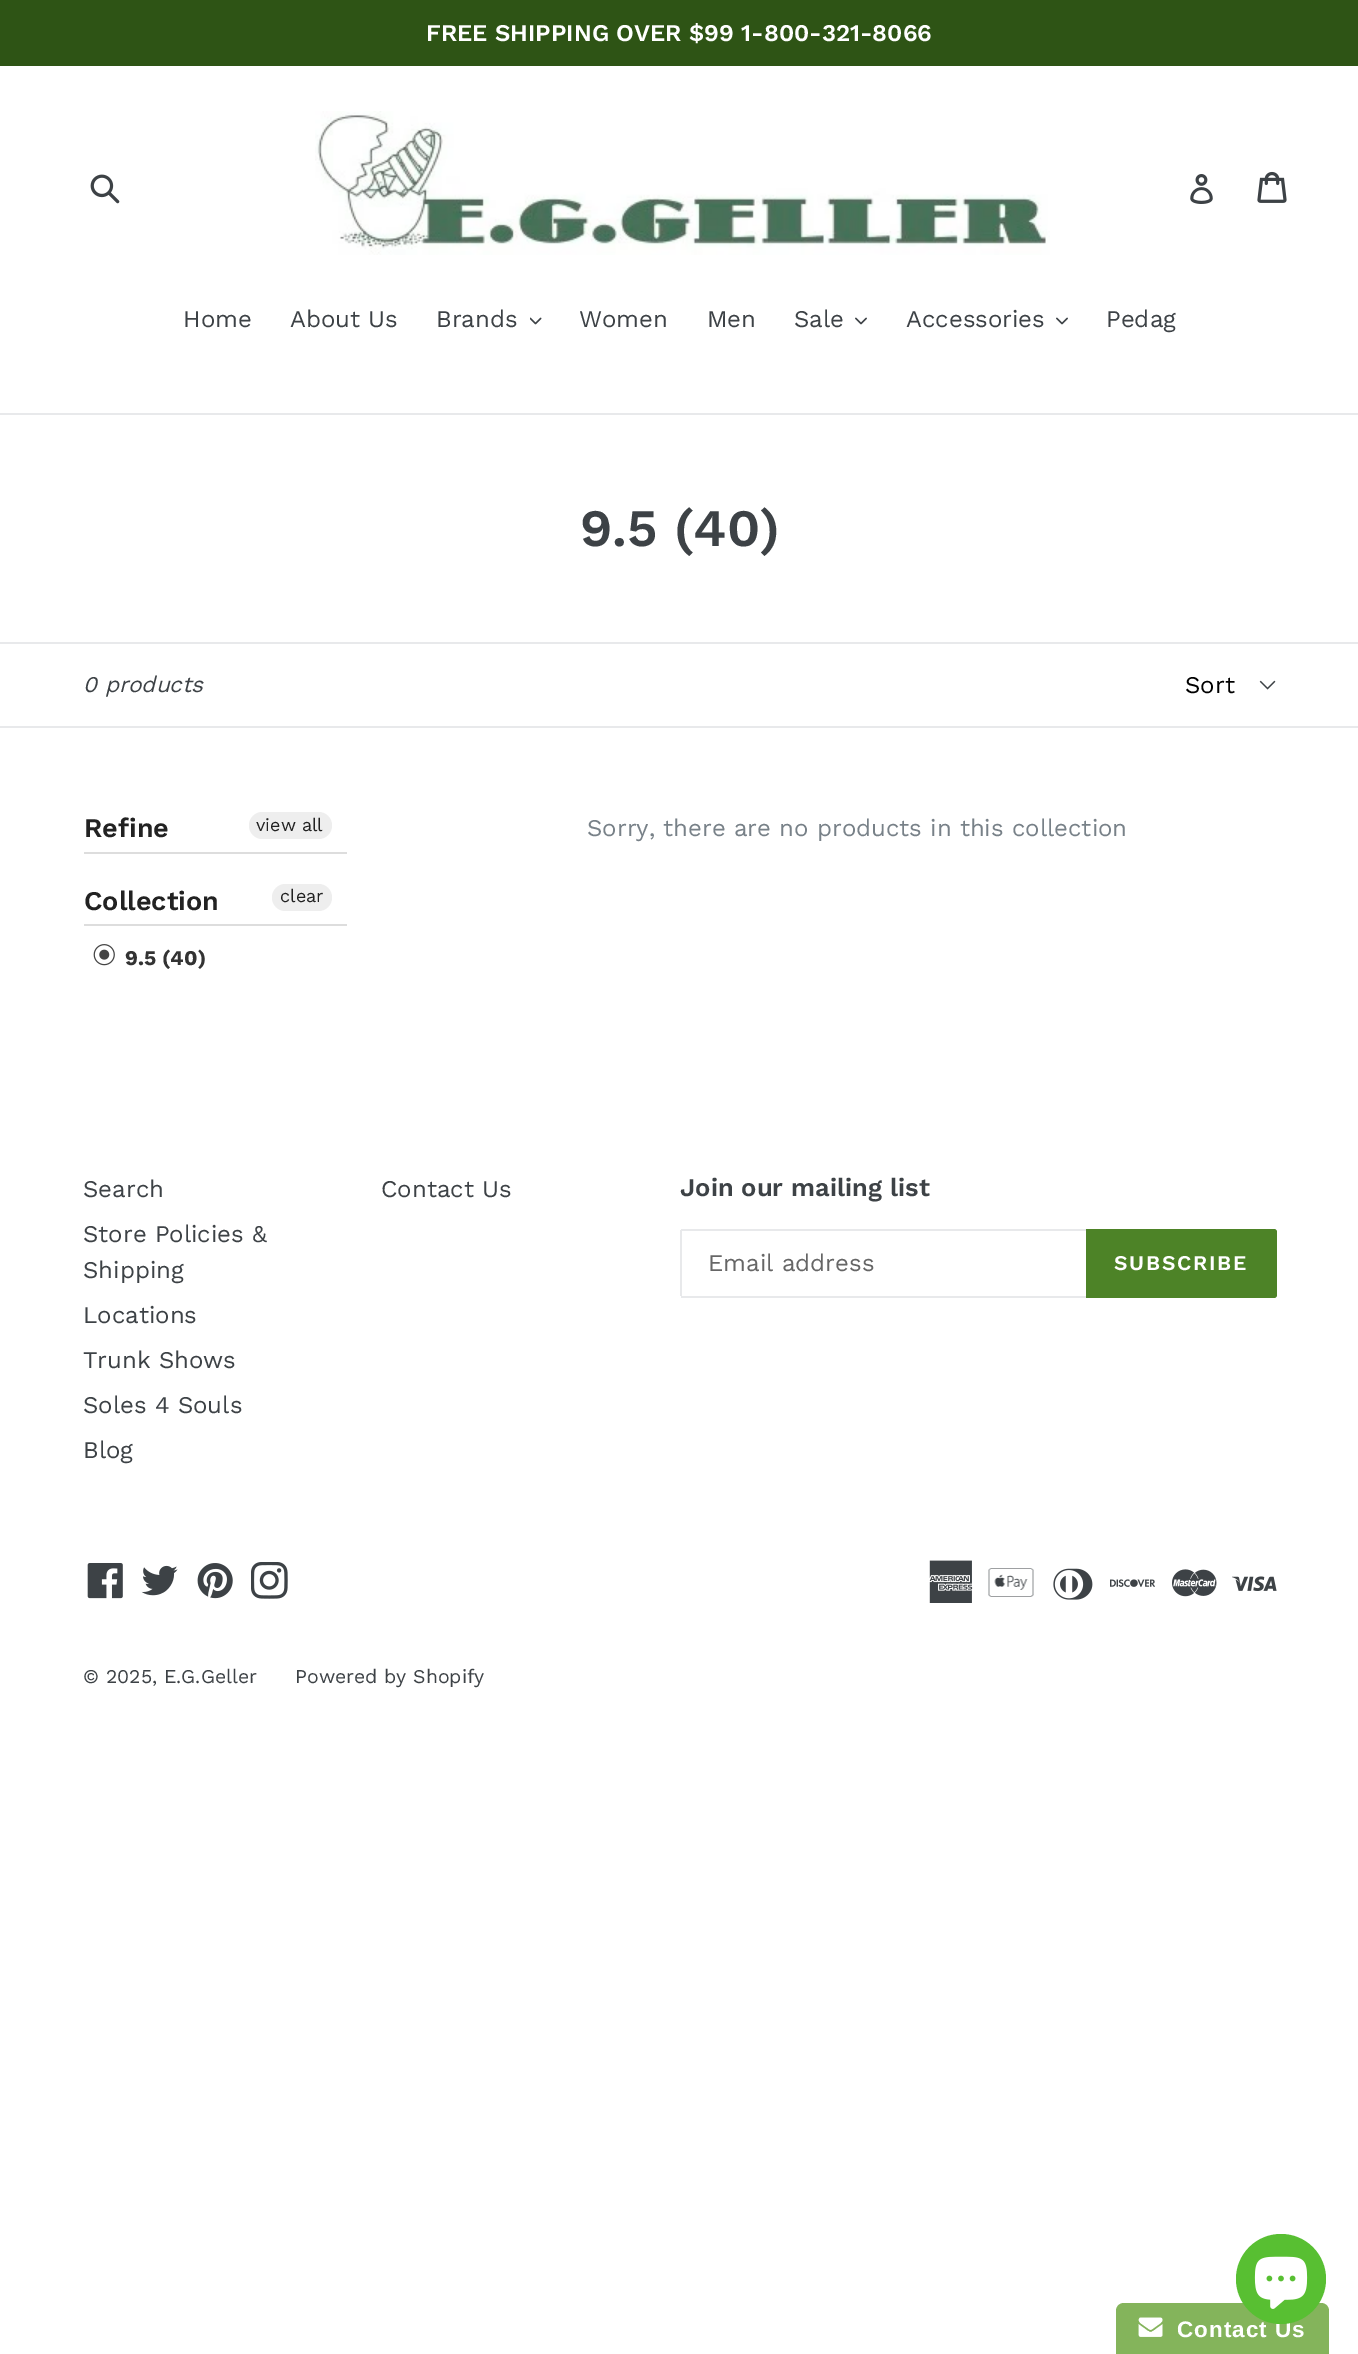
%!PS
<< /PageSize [1358 2354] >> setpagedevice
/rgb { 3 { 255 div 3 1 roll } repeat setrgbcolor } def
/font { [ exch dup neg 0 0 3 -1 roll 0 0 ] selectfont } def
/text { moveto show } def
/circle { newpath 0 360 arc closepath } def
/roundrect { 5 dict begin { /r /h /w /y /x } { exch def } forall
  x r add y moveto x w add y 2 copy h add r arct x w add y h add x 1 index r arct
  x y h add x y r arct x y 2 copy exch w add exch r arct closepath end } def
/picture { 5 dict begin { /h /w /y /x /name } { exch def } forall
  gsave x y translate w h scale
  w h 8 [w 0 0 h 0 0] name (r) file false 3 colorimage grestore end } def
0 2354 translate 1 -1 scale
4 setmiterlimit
255 255 255 rgb
0 0 1358 2354 rectfill
46 84 21 rgb
0 0 1358 66 rectfill
(img_01.rgb) 90 174 30 30 picture
(img_02.rgb) 315 111 735 144 picture
(img_03.rgb) 1190 174 23 30 picture
(img_04.rgb) 1257 171 30 32 picture
232 233 235 rgb
0 413 1358 2 rectfill
(img_05.rgb) 530 317 12 8 picture
(img_06.rgb) 855 317 12 8 picture
(img_06.rgb) 1056 317 12 8 picture
0 642 1358 2 rectfill
0 726 1358 2 rectfill
(img_07.rgb) 1259 680 17 10 picture
221 221 221 rgb
84 852 263 2 rectfill
238 238 238 rgb
249 812 83 27 13.5 roundrect fill
221 221 221 rgb
84 924 263 2 rectfill
238 238 238 rgb
272 884 60 27 13.5 roundrect fill
(img_08.rgb) 93 944 22 22 picture
232 233 235 rgb
681 1229 405 2 rectfill
681 1296 405 2 rectfill
680 1230 2 66 rectfill
77 131 39 rgb
1086 1229 moveto 188 0 rlineto 1.5 0 3 1.5 3 3 rcurveto 0 63 rlineto 0 1.5 -1.5 3 -3 3 rcurveto -188 0 rlineto closepath fill
(img_09.rgb) 87 1563 36 36 picture
(img_10.rgb) 141 1565 37 31 picture
(img_11.rgb) 197 1563 36 36 picture
(img_12.rgb) 251 1562 37 37 picture
(img_13.rgb) 929 1560 44 43 picture
(img_14.rgb) 988 1568 46 29 picture
(img_15.rgb) 1053 1568 40 32 picture
(img_16.rgb) 1110 1579 45 8 picture
(img_17.rgb) 1172 1569 45 28 picture
(img_18.rgb) 1232 1576 45 15 picture
132 180 91 rgb
1124 2303 moveto 197 0 rlineto 4.5 0 8 3.5 8 8 rcurveto 0 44 rlineto -213 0 rlineto 0 -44 rlineto 0 -4.5 3.5 -8 8 -8 rcurveto closepath fill
(img_20.rgb) 1138 2317 25 20 picture
/WorkSans-SemiBold 24 font
255 255 255 rgb
(FREE SHIPPING OVER $99 1-800-321-8066) 426 41 text
/WorkSans-Regular 24 font
61 66 70 rgb
(Home) 183 327 text
(About Us) 290 327 text
(Brands) 436 327 text
(Women) 579 327 text
(Men) 707 327 text
(Sale) 794 327 text
(Accessories) 906 327 text
(Pedag) 1106 327 text
/WorkSans-SemiBold 52.5 font
(9.5 \(40\)) 580 546 text
/WorkSans-Italic 22.5 font
(0 products) 83 692 text
/WorkSans-Regular 24 font
0 0 0 rgb
(Sort) 1185 693 text
/WorkSans-SemiBold 27 font
34 34 34 rgb
(Refine) 84 837 text
/WorkSans-Regular 18 font
(view all) 256 831 text
/WorkSans-SemiBold 27 font
(Collection) 84 910 text
/WorkSans-Regular 18 font
(clear) 280 902 text
/WorkSans-Bold 21 font
51 51 51 rgb
(9.5 \(40\)) 125 965 text
/WorkSans-Regular 24 font
120 129 136 rgb
(Sorry, there are no products in this collection) 587 836 text
61 66 70 rgb
(Search) 83 1197 text
(Store Policies &) 83 1242 text
(Shipping) 83 1278 text
(Locations) 83 1323 text
(Trunk Shows) 83 1368 text
(Soles 4 Souls) 83 1413 text
(Blog) 83 1458 text
(Contact Us) 381 1197 text
/WorkSans-SemiBold 25.5 font
(Join our mailing list) 680 1196 text
/WorkSans-Regular 24 font
102 102 102 rgb
(Email address) 708 1271 text
/WorkSans-SemiBold 21 font
255 255 255 rgb
1114 1270 moveto 1.75 0 (SUBSCRIBE) ashow
/WorkSans-Regular 19.5 font
61 66 70 rgb
(© 2025, E.G.Geller) 83 1683 text
(Powered by Shopify) 295 1683 text
/LiberationSans-Bold 22.5 font
255 255 255 rgb
1177 2337 moveto 1 0 (Contact Us) ashow
88 191 50 rgb
1281 2279 45 circle fill
(img_19.rgb) 1254 2256 54 53 picture
showpage
